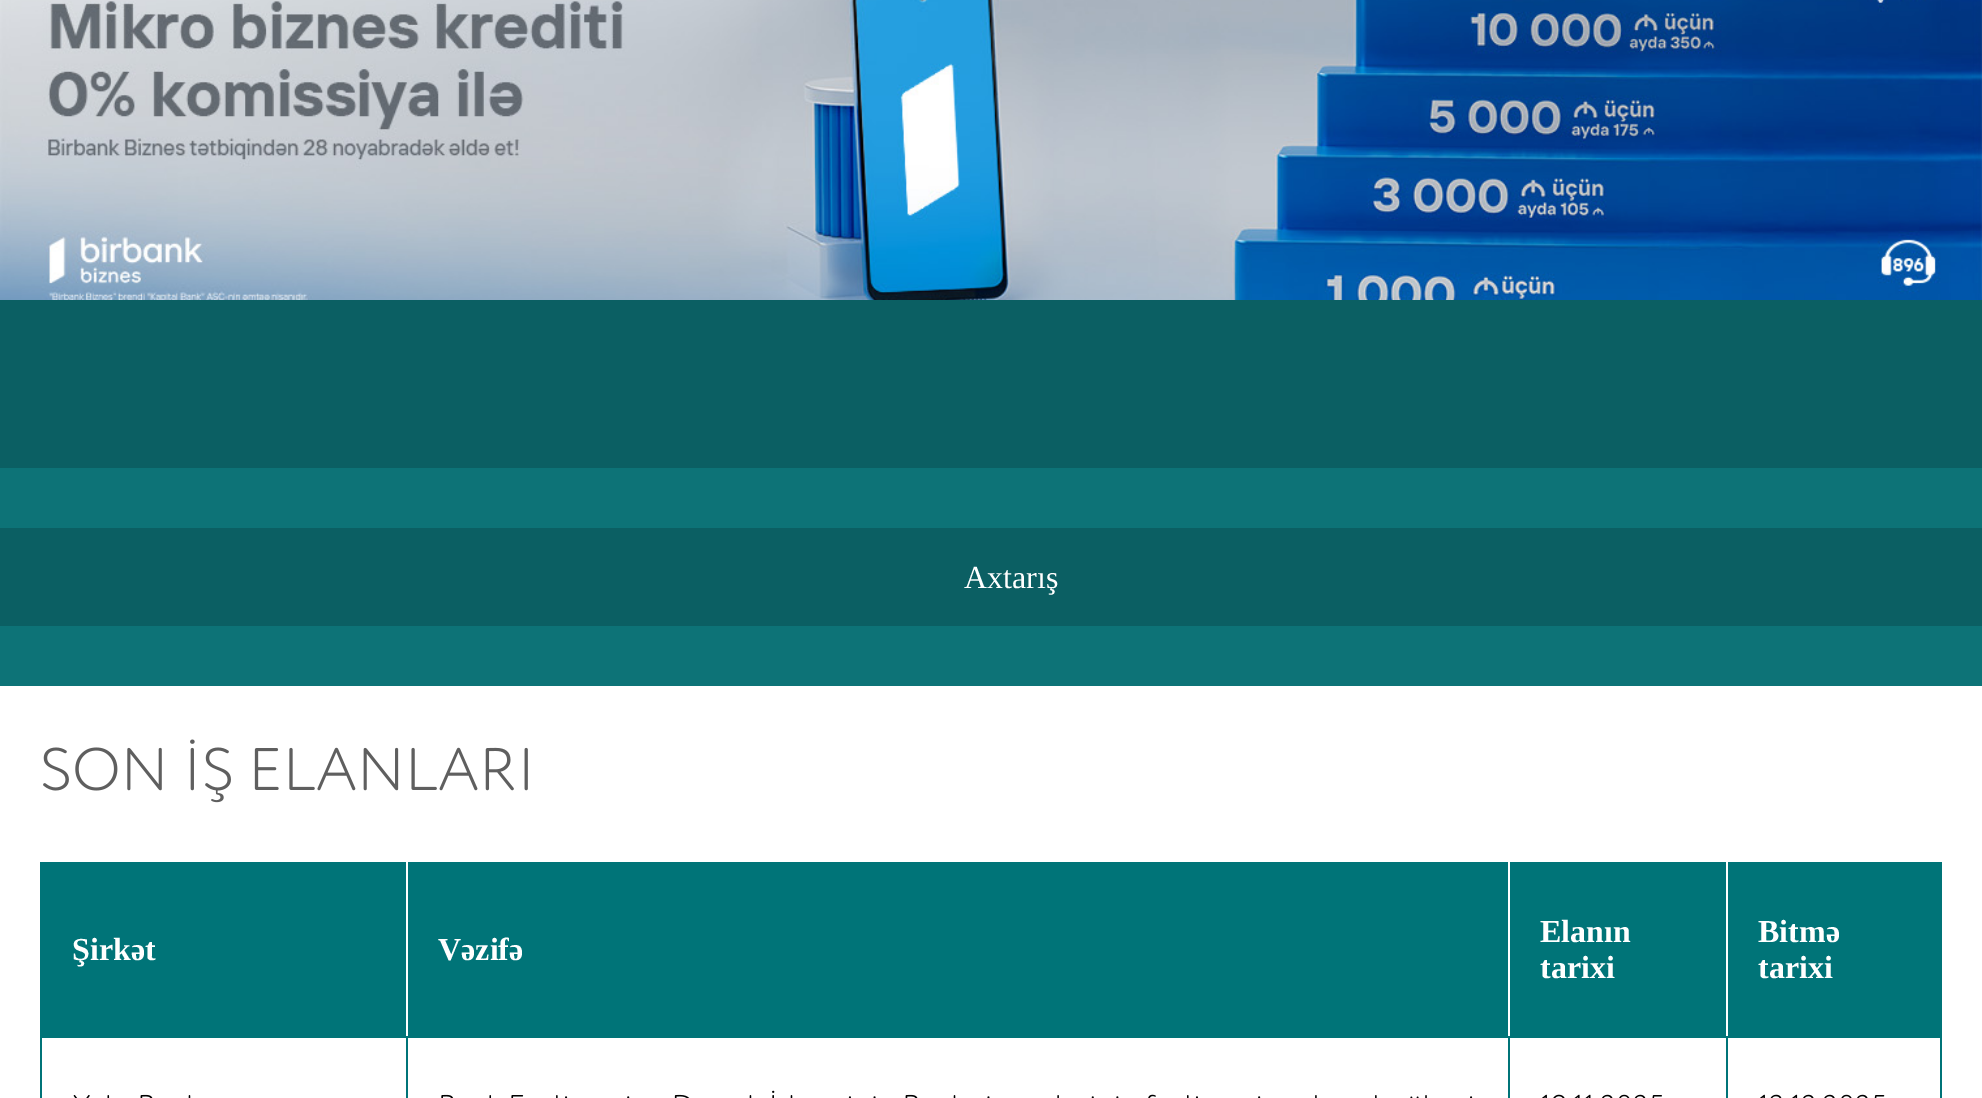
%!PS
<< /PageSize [1982 1098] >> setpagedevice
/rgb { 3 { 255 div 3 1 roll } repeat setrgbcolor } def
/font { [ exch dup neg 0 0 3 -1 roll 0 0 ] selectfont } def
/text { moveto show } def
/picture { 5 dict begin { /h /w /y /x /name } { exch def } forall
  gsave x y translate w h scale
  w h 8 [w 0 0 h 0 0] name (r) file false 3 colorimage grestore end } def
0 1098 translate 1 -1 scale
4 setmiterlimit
255 255 255 rgb
0 0 1982 1098 rectfill
(img_01.rgb) 0 0 1982 300 picture
11 95 99 rgb
0 300 1982 168 rectfill
13 115 119 rgb
0 468 1982 218 rectfill
11 95 99 rgb
0 528 1982 98 rectfill
(img_02.rgb) 43 739 485 64 picture
0 116 120 rgb
40 862 1902 2 rectfill
1940 862 2 236 rectfill
40 862 2 236 rectfill
42 864 1898 174 rectfill
406 1036 2 62 rectfill
255 255 255 rgb
406 862 2 176 rectfill
0 116 120 rgb
406 1036 2 2 rectfill
1508 1036 2 62 rectfill
255 255 255 rgb
1508 862 2 176 rectfill
0 116 120 rgb
1508 1036 2 2 rectfill
1726 1036 2 62 rectfill
255 255 255 rgb
1726 862 2 176 rectfill
0 116 120 rgb
1726 1036 2 2 rectfill
(img_03.rgb) 73 1094 118 4 picture
(img_04.rgb) 441 1090 1032 8 picture
(img_05.rgb) 1542 1094 120 4 picture
(img_06.rgb) 1760 1094 125 4 picture
/LiberationSerif-Regular 32 font
255 255 255 rgb
(Axtarış) 964 588 text
/LiberationSerif-Bold 32 font
(Şirkət) 72 960 text
(Vəzifə) 438 960 text
(Elanın) 1540 942 text
(tarixi) 1540 978 text
(Bitmə) 1758 942 text
(tarixi) 1758 978 text
showpage
